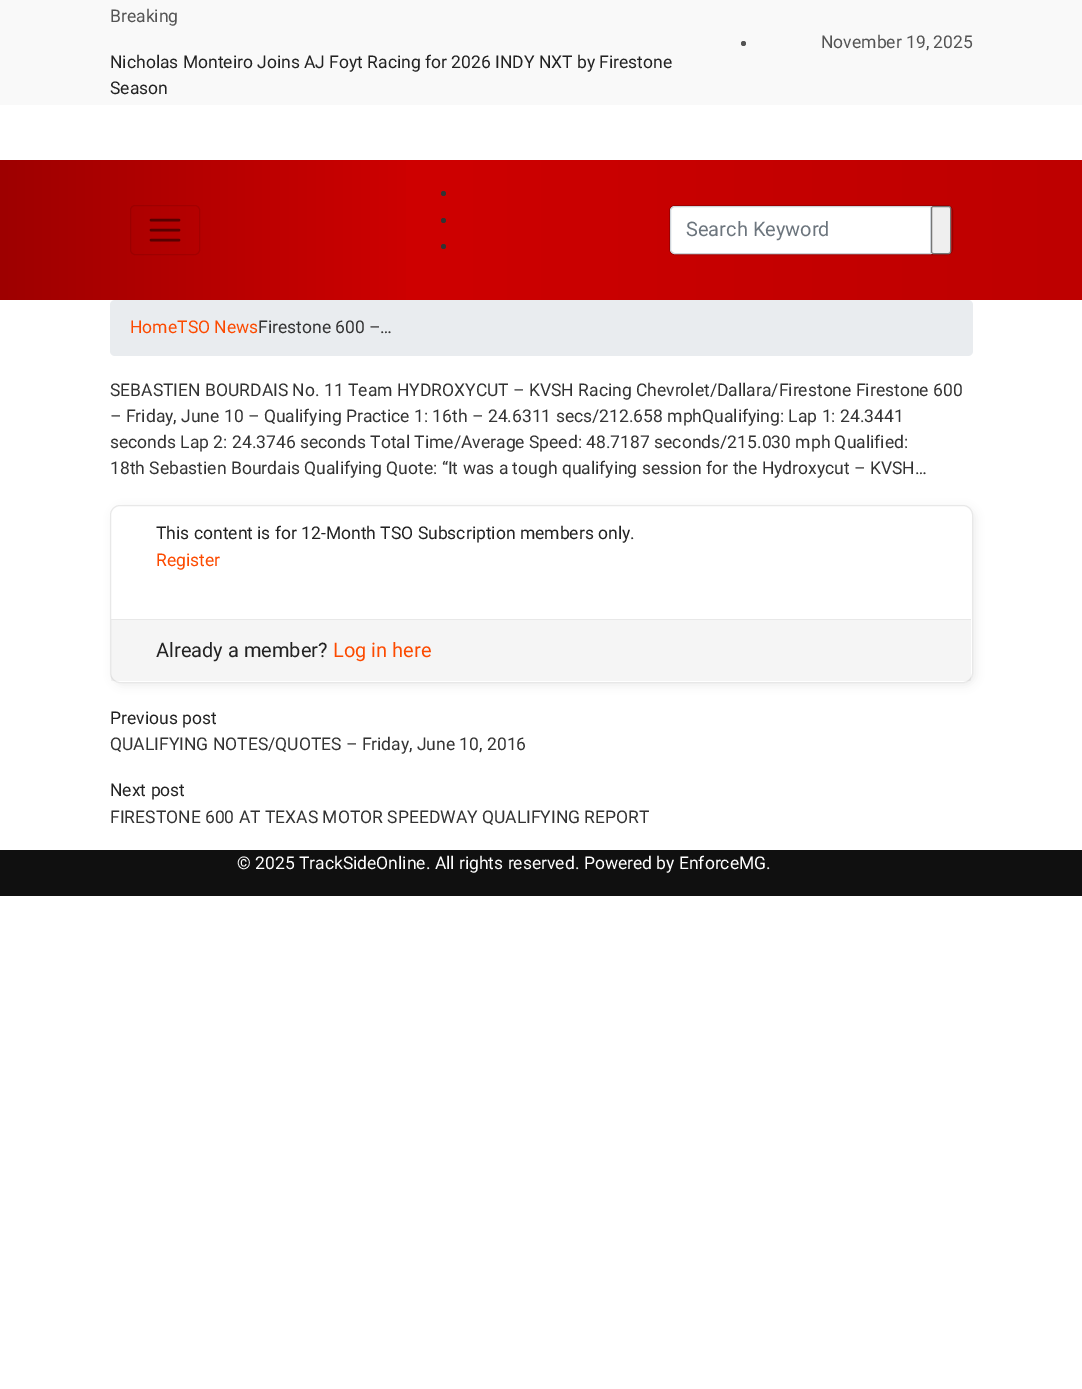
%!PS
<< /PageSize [1082 1389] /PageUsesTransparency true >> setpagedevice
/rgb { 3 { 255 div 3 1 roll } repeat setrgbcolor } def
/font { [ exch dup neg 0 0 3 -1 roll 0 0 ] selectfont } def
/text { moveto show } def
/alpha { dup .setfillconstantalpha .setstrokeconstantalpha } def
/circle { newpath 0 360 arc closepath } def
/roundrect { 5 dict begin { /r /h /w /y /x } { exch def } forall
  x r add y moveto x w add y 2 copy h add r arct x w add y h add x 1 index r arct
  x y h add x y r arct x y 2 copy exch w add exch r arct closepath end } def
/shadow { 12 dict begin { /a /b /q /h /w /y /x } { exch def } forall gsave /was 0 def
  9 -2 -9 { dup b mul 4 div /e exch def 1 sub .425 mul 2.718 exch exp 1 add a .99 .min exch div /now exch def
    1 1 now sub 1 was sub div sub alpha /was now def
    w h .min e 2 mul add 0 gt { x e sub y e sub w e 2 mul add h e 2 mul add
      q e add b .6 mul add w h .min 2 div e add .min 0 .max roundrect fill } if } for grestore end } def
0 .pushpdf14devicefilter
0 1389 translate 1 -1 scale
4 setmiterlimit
255 255 255 rgb
0 0 1082 1389 rectfill
249 249 249 rgb
0 0 1082 105 rectfill
84 84 84 rgb
743.5 43.5 2.5 circle fill
gsave 0 160 moveto 1082 0 rlineto 0 140 rlineto -1082 0 rlineto closepath clip newpath
<< /ShadingType 2 /ColorSpace /DeviceRGB /Coords [0 230 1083 230] /Extend [true true] /Function << /FunctionType 3 /Domain [0 1] /Functions [<< /FunctionType 2 /Domain [0 1] /C0 [0.62 0 0] /C1 [0.808 0 0] /N 1 >> << /FunctionType 2 /Domain [0 1] /C0 [0.808 0 0] /C1 [0.745 0 0] /N 1 >>] /Bounds [0.38] /Encode [0 1 0 1] >> >> shfill grestore
0.1 alpha
0 0 0 rgb
130.5 205.5 69 49 4.5 roundrect stroke
0.5 alpha
2.5 setlinewidth
1 setlinecap
151 220 moveto 28 0 rlineto 151 230 moveto 28 0 rlineto 151 240 moveto 28 0 rlineto stroke
1 alpha
51 51 51 rgb
443.5 193.5 2.5 circle fill
443.5 220.5 2.5 circle fill
443.5 246.5 2.5 circle fill
255 255 255 rgb
670 206 281 48 5 roundrect fill
0.2 alpha
0 0 0 rgb
1 setlinewidth
0 setlinecap
669.5 205.5 283 49 5.5 roundrect stroke
1 alpha
206 212 218 rgb
675 206.5 moveto 255.5 0 rlineto 0 47 rlineto -255.5 0 rlineto -2.5 0 -4.5 -2 -4.5 -4.5 rcurveto 0 -38 rlineto 0 -2.5 2 -4.5 4.5 -4.5 rcurveto closepath stroke
239 239 239 rgb
931.5 206.5 19 47 2 roundrect gsave fill grestore
118 118 118 rgb
stroke
233 236 239 rgb
110 300 863 56 5 roundrect fill
0 0 0 rgb
113 508 862 177 10 4.5 0.07 shadow
255 255 255 rgb
110.5 505.5 862 177 9.5 roundrect gsave fill grestore
232 232 232 rgb
stroke
0.04 alpha
0 0 0 rgb
111 620 860 61 rectfill
1 alpha
232 232 232 rgb
111 619 860 1 rectfill
16 16 16 rgb
0 850 1082 46 rectfill
/Roboto-Regular 17.5 font
84 84 84 rgb
(Breaking) 110 22 text
34 34 34 rgb
(Nicholas Monteiro Joins AJ Foyt Racing for 2026 INDY NXT by Firestone) 110 68 text
(Season) 110 94 text
84 84 84 rgb
(November 19, 2025) 821 48 text
/Roboto-Regular 20 font
108 117 125 rgb
(Search Keyword) 686 236 text
/Roboto-Regular 17.5 font
252 74 0 rgb
(HomeTSO News) 130 333 text
51 51 51 rgb
(Firestone 600 –…) 258 333 text
(SEBASTIEN BOURDAIS No. 11 Team HYDROXYCUT – KVSH Racing Chevrolet/Dallara/Firestone Firestone 600) 110 396 text
(– Friday, June 10 – Qualifying Practice 1: 16th – 24.6311 secs/212.658 mphQualifying: Lap 1: 24.3441) 110 422 text
(seconds Lap 2: 24.3746 seconds Total Time/Average Speed: 48.7187 seconds/215.030 mph Qualified:) 110 448 text
(18th Sebastien Bourdais Qualifying Quote: “It was a tough qualifying session for the Hydroxycut – KVSH…) 110 474 text
34 34 34 rgb
(This content is for 12-Month TSO Subscription members only.) 156 539 text
252 74 0 rgb
(Register) 156 566 text
/Roboto-Regular 20 font
34 34 34 rgb
(Already a member?) 156 657 text
252 74 0 rgb
(Log in here) 333 657 text
/Roboto-Regular 17.5 font
34 34 34 rgb
(Previous post) 110 724 text
51 51 51 rgb
(QUALIFYING NOTES/QUOTES – Friday, June 10, 2016) 110 750 text
34 34 34 rgb
(Next post) 110 796 text
51 51 51 rgb
(FIRESTONE 600 AT TEXAS MOTOR SPEEDWAY QUALIFYING REPORT) 110 823 text
255 255 255 rgb
(© 2025 TrackSideOnline. All rights reserved. Powered by EnforceMG.) 237 869 text
.poppdf14devicefilter showpage
